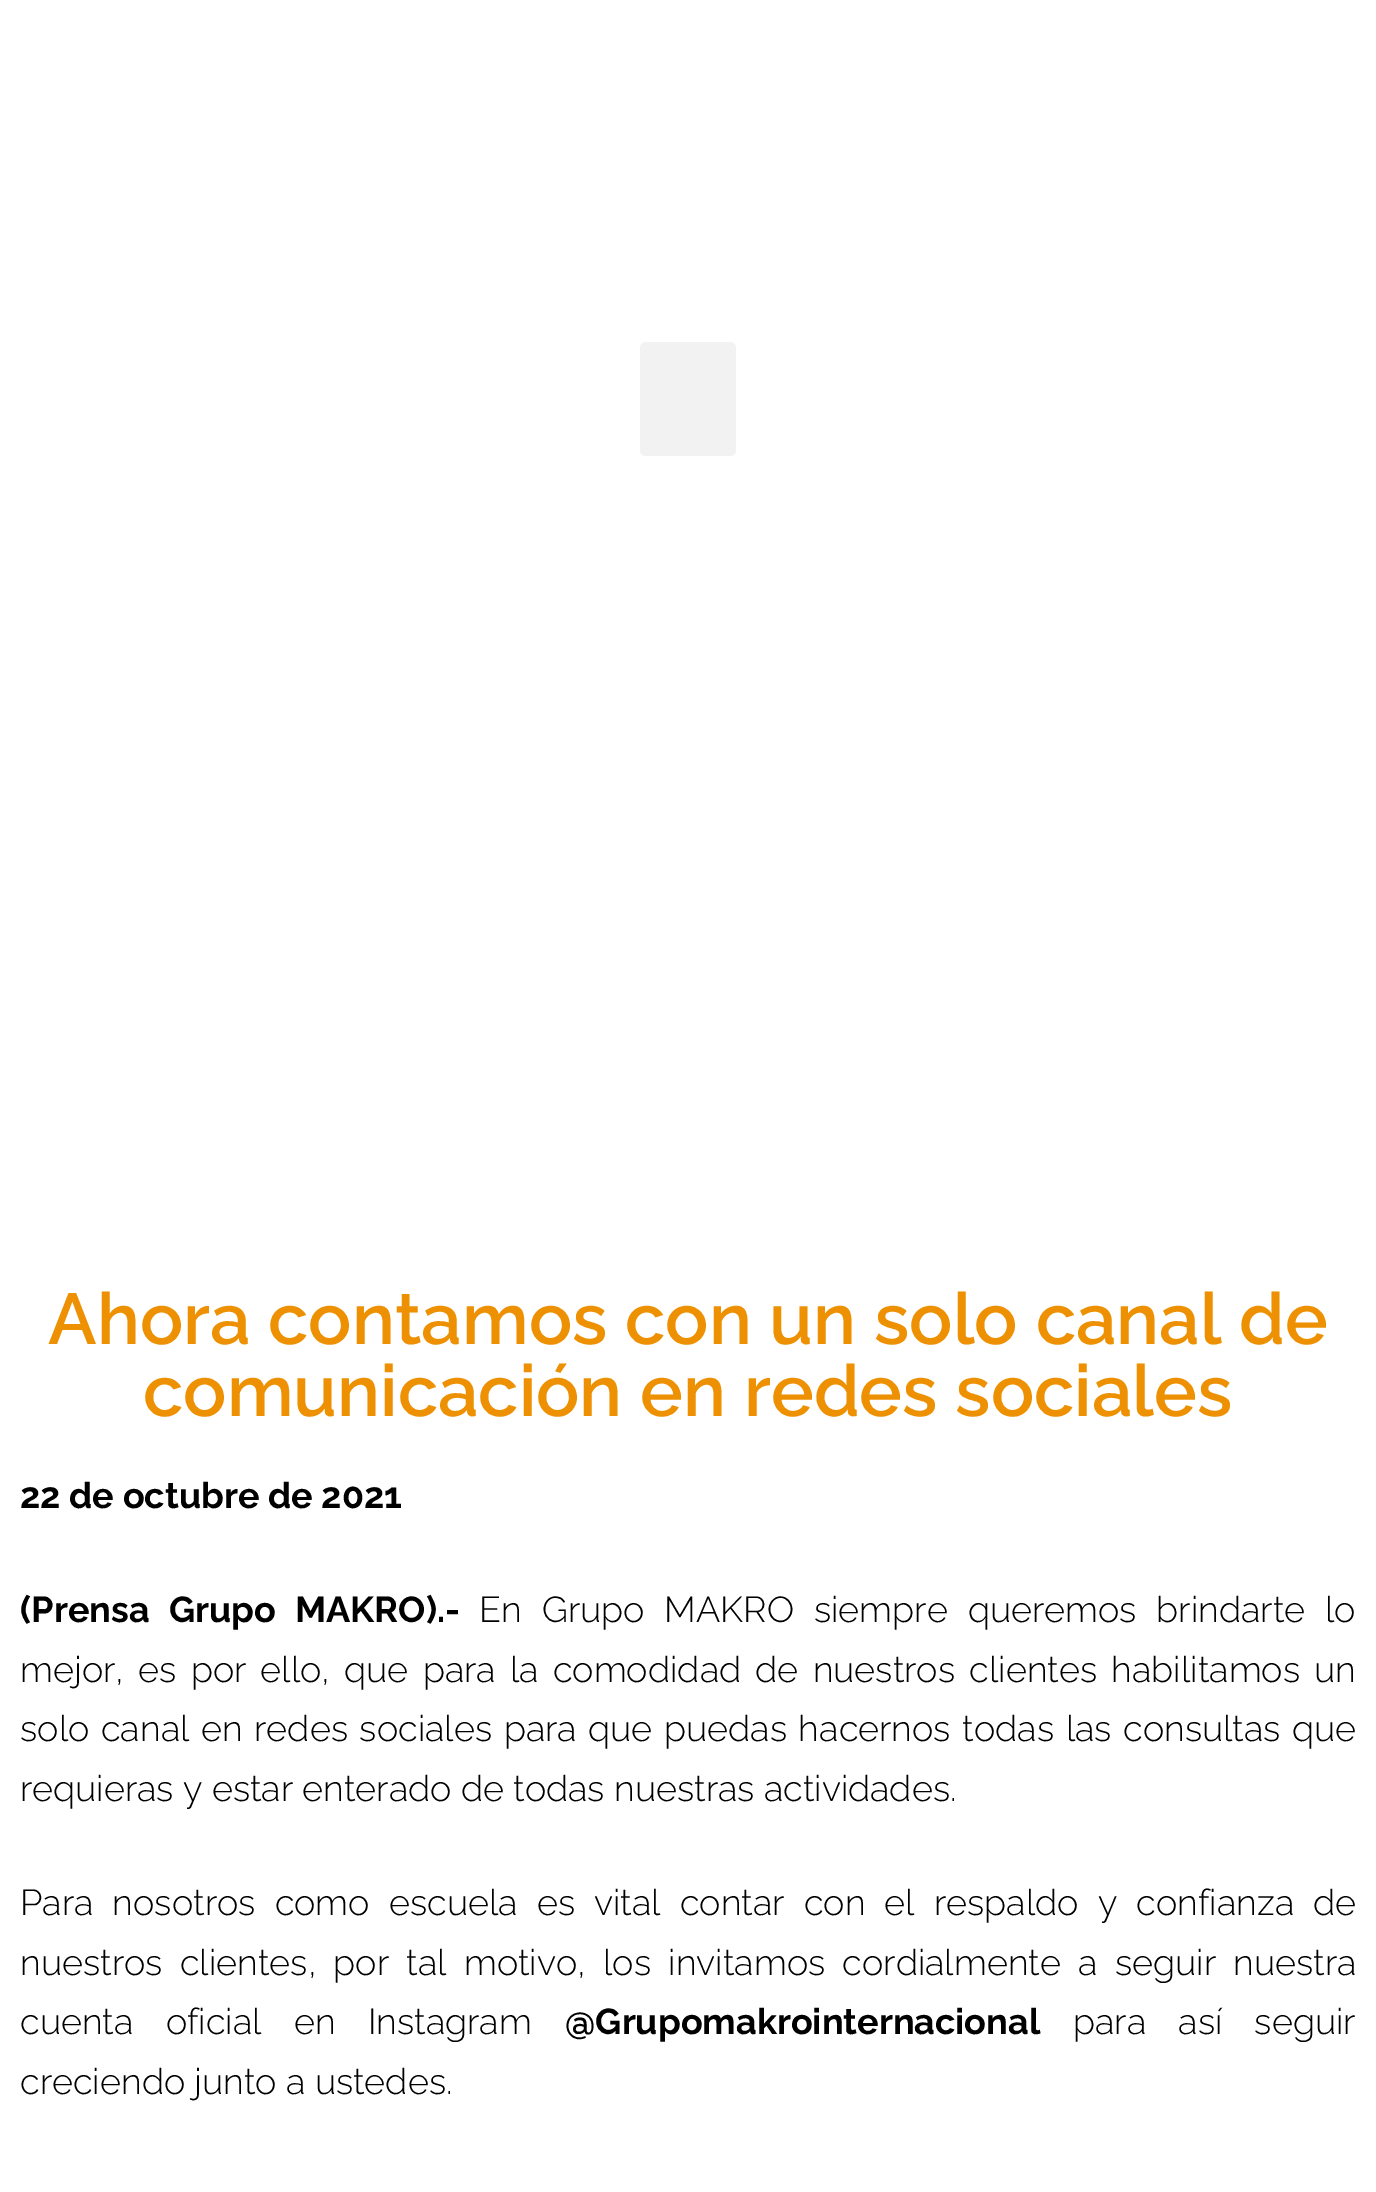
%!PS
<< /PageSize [1376 2192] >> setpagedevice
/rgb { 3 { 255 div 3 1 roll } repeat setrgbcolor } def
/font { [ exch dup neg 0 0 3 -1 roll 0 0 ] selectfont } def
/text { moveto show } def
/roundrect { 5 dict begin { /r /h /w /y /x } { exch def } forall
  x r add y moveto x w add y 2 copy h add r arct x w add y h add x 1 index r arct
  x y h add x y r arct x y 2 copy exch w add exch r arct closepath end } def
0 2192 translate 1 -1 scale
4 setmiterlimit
255 255 255 rgb
0 0 1376 2192 rectfill
242 242 242 rgb
640 342 96 114 6 roundrect fill
/Raleway-SemiBold 72 font
237 144 1 rgb
(Ahora contamos con un solo canal de) 48 1344 text
(comunicación en redes sociales) 143 1416 text
/Raleway-Bold 36 font
0 0 0 rgb
(22 de octubre de 2021) 20 1508 text
20 1622 moveto 10.75 0 32 (\(Prensa Grupo MAKRO\).-) widthshow
/Raleway-Light 36 font
479 1622 moveto 10.75 0 32 (En Grupo MAKRO siempre queremos brindarte lo) widthshow
20 1682 moveto 5 0 32 (mejor, es por ello, que para la comodidad de nuestros clientes habilitamos un) widthshow
20 1741 moveto 2.4 0 32 (solo canal en redes sociales para que puedas hacernos todas las consultas que) widthshow
(requieras y estar enterado de todas nuestras actividades.) 20 1801 text
20 1915 moveto 9.9 0 32 (Para nosotros como escuela es vital contar con el respaldo y confianza de) widthshow
20 1975 moveto 8 0 32 (nuestros clientes, por tal motivo, los invitamos cordialmente a seguir nuestra) widthshow
20 2034 moveto 23 0 32 (cuenta oficial en Instagram) widthshow
/Raleway-Bold 36 font
(@Grupomakrointernacional) 565 2034 text
/Raleway-Light 36 font
1073 2034 moveto 23 0 32 (para así seguir) widthshow
(creciendo junto a ustedes.) 20 2094 text
showpage
